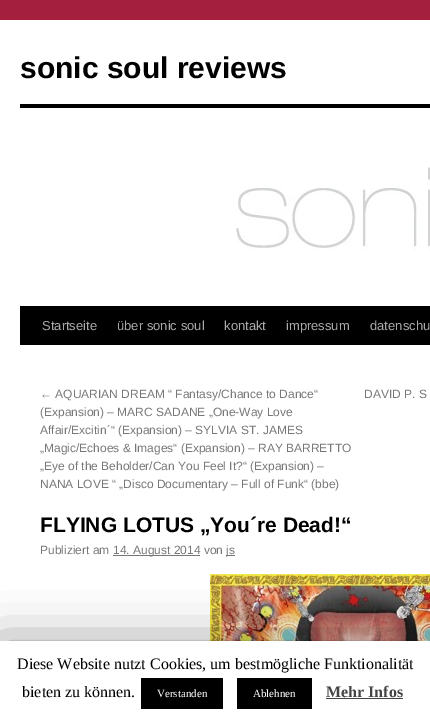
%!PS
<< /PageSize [430 727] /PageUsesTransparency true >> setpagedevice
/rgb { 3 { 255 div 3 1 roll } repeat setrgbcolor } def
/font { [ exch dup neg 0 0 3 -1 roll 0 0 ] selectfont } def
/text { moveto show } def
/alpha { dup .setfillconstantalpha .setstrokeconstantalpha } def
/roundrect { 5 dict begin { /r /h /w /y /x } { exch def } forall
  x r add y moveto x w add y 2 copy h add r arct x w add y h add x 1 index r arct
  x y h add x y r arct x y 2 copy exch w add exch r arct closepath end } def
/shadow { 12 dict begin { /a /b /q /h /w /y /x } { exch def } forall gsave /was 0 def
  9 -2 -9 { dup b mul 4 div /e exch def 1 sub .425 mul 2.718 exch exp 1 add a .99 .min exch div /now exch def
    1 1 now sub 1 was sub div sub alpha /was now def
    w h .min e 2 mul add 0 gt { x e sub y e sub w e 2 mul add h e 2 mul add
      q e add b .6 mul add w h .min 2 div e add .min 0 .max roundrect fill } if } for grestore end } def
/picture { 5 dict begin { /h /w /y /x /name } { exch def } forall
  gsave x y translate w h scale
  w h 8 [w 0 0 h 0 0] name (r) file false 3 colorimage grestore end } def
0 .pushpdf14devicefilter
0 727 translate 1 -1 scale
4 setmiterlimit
164 30 61 rgb
0 0 430 727 rectfill
255 255 255 rgb
0 20 430 621 rectfill
0 0 0 rgb
20 104 410 4 rectfill
20 306 410 39 rectfill
(img_01.rgb) 236 167 194 85 picture
119 119 119 rgb
113 555 87 1 rectfill
226 555 9 1 rectfill
(img_02.rgb) 210 574 220 67 picture
0 0 0 rgb
0 646 430 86 0 25 0.5 shadow
255 255 255 rgb
0 641 430 86 rectfill
0 0 0 rgb
141 678 82 31 rectfill
237 678 75 31 rectfill
68 68 68 rgb
326 698 77 1 rectfill
/LiberationSans-Bold 30 font
0 0 0 rgb
(sonic soul reviews) 20 78 text
/LiberationSans-Regular 13 font
170 170 170 rgb
(Startseite) 42 330 text
(über sonic soul) 117 330 text
(kontakt) 224 330 text
(impressum) 286 330 text
(datenschu) 370 330 text
/LiberationSans-Regular 12 font
119 119 119 rgb
(← AQUARIAN DREAM “ Fantasy/Chance to Dance“) 40 398 text
(\(Expansion\) – MARC SADANE „One-Way Love) 40 416 text
(Affair/Excitin´“ \(Expansion\) – SYLVIA ST. JAMES) 40 434 text
(„Magic/Echoes & Images“ \(Expansion\) – RAY BARRETTO) 40 452 text
(„Eye of the Beholder/Can You Feel It?“ \(Expansion\) –) 40 470 text
(NANA LOVE “ „Disco Documentary – Full of Funk“ \(bbe\)) 40 488 text
(DAVID P. S) 364 398 text
/LiberationSans-Bold 21 font
0 0 0 rgb
(FLYING LOTUS „You´re Dead!“) 40 532 text
/LiberationSans-Regular 12 font
119 119 119 rgb
(Publiziert am) 40 554 text
(14. August 2014 von) 113 554 text
(js) 226 554 text
/LiberationSerif-Regular 16 font
0 0 0 rgb
(Diese Website nutzt Cookies, um bestmögliche Funktionalität) 17 669 text
(bieten zu können.) 22 697 text
/LiberationSerif-Regular 11 font
255 255 255 rgb
(Verstanden) 157 697 text
(Ablehnen) 253 697 text
/LiberationSerif-Bold 16 font
68 68 68 rgb
(Mehr Infos) 326 697 text
.poppdf14devicefilter showpage
